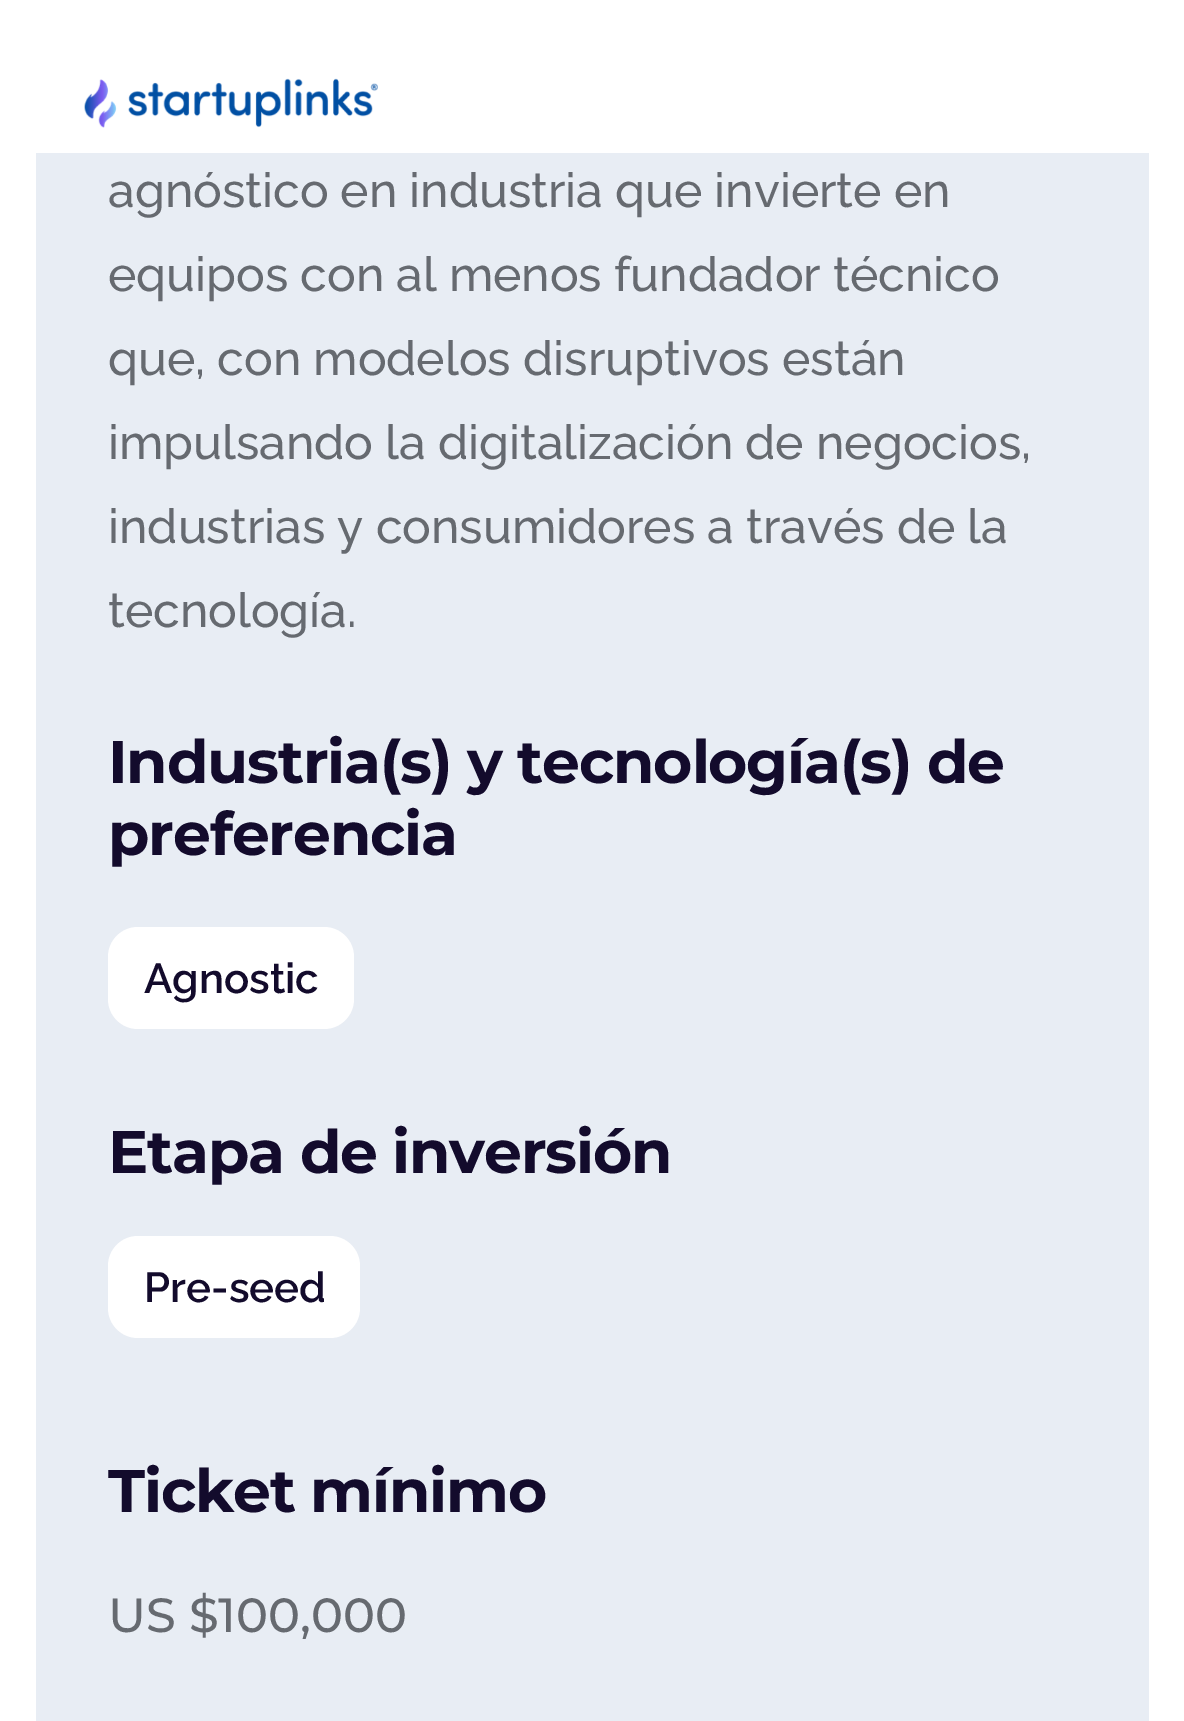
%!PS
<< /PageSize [1184 1721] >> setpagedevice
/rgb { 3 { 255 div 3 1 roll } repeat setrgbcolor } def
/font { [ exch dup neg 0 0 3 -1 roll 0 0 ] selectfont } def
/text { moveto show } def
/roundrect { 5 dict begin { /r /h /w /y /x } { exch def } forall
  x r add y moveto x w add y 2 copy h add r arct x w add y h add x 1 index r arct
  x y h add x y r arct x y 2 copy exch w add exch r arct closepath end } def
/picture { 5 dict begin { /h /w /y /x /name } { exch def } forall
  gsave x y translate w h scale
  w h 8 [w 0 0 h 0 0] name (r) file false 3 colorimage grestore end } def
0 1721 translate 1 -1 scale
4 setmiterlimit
255 255 255 rgb
0 0 1184 1721 rectfill
(img_01.rgb) 84 78 294 50 picture
232 237 244 rgb
36 153 1113 1568 rectfill
255 255 255 rgb
108 927 246 102 30 roundrect fill
108 1236 252 102 30 roundrect fill
/Raleway-Medium 48 font
102 106 112 rgb
(agnóstico en industria que invierte en) 108 207 text
(equipos con al menos fundador técnico) 108 291 text
(que, con modelos disruptivos están) 108 375 text
(impulsando la digitalización de negocios,) 108 459 text
(industrias y consumidores a través de la) 108 543 text
(tecnología.) 108 627 text
/Montserrat-Bold 60 font
19 11 44 rgb
108 783 moveto -1.2 0 (Industria\(s\) y tecnología\(s\) de) ashow
108 855 moveto -1.2 0 (preferencia) ashow
/Raleway-SemiBold 42 font
(Agnostic) 144 993 text
/Montserrat-Bold 60 font
108 1173 moveto -1.2 0 (Etapa de inversión) ashow
/Raleway-SemiBold 42 font
(Pre-seed) 144 1302 text
/Montserrat-Bold 60 font
108 1512 moveto -1.2 0 (Ticket mínimo) ashow
/Montserrat-Medium 48 font
102 106 112 rgb
(US $100,000) 108 1632 text
showpage
